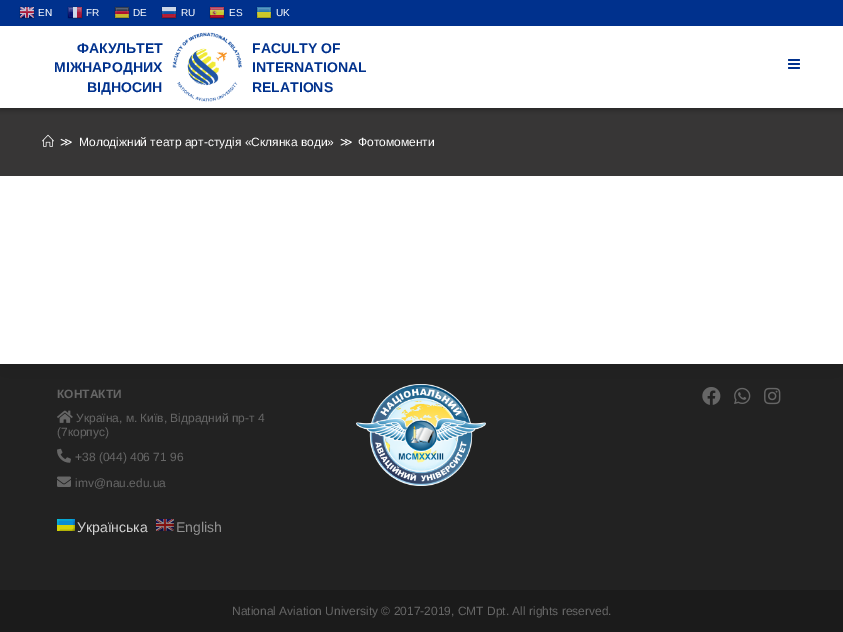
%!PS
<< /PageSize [843 632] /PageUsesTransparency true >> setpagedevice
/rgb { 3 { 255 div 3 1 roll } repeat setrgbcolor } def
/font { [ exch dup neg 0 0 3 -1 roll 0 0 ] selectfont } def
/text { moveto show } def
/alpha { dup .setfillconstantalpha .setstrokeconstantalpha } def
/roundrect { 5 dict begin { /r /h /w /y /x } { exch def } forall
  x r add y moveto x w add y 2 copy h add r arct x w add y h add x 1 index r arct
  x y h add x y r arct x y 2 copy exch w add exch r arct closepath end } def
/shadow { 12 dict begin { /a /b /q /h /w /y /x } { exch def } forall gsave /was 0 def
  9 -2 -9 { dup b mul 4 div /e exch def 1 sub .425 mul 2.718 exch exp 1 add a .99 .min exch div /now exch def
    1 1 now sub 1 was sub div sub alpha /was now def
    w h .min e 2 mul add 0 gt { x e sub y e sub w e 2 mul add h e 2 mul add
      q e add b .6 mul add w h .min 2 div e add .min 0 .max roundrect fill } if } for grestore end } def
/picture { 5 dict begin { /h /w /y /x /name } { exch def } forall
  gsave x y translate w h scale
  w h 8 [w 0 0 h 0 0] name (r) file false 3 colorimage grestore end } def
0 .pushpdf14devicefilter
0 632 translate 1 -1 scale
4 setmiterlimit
255 255 255 rgb
0 0 843 632 rectfill
34 34 34 rgb
0 364 843 226 rectfill
(img_10.rgb) 57 410 16 13 picture
(img_15.rgb) 356 384 130 102 picture
(img_16.rgb) 702 387 19 18 picture
(img_17.rgb) 734 387 17 17 picture
(img_18.rgb) 764 387 17 18 picture
gsave
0 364 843 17 rectclip
0 0 0 rgb
0 108 843 256 0 20 0.1 shadow
grestore
55 54 54 rgb
0 108 843 68 rectfill
38 38 38 rgb
0 29 843 81 0 2.5 1 shadow
0 49 141 rgb
0 0 843 26 rectfill
(img_01.rgb) 19 6 16 14 picture
(img_02.rgb) 67 6 16 14 picture
(img_03.rgb) 114 6 16 14 picture
(img_04.rgb) 161 6 16 14 picture
(img_05.rgb) 209 6 16 14 picture
(img_06.rgb) 256 6 16 14 picture
255 255 255 rgb
0 26 843 82 rectfill
(img_07.rgb) 172 32 70 70 picture
(img_08.rgb) 788 59 12 10 picture
(img_09.rgb) 42 134 12 13 picture
(img_11.rgb) 57 448 14 15 picture
(img_12.rgb) 57 476 14 11 picture
(img_13.rgb) 57 519 18 12 picture
(img_14.rgb) 156 519 18 12 picture
27 27 27 rgb
0 590 843 42 rectfill
/LiberationSans-Regular 10 font
255 255 255 rgb
(EN) 38 16 text
(FR) 86 16 text
(DE) 133 16 text
(RU) 181 16 text
(ES) 229 16 text
(UK) 276 16 text
/LiberationSans-Bold 14 font
0 49 141 rgb
(ФАКУЛЬТЕТ) 77 53 text
(МІЖНАРОДНИХ) 54 72 text
(ВІДНОСИН) 87 92 text
(FACULTY OF) 252 53 text
(INTERNATIONAL) 252 72 text
(RELATIONS) 252 92 text
/DejaVuSans-Regular 12 font
255 255 255 rgb
(≫) 60 146 text
/LiberationSans-Regular 12 font
(Молодіжний театр арт-студія «Склянка води») 79 146 text
/DejaVuSans-Regular 12 font
(≫) 340 146 text
/LiberationSans-Regular 12 font
(Фотомоменти) 358 146 text
/LiberationSans-Bold 12 font
102 102 102 rgb
(КОНТАКТИ) 57 398 text
/LiberationSans-Regular 12 font
(Україна, м. Київ, Відрадний пр-т 4) 76 422 text
(\(7корпус\)) 57 436 text
(+38 \(044\) 406 71 96) 75 461 text
(imv@nau.edu.ua) 75 487 text
/LiberationSans-Regular 14 font
211 211 211 rgb
(Українська) 77 532 text
145 145 145 rgb
(English) 176 532 text
/LiberationSans-Regular 12 font
102 102 102 rgb
(National Aviation University © 2017-2019, CMT Dpt. All rights reserved.) 232 615 text
.poppdf14devicefilter showpage
